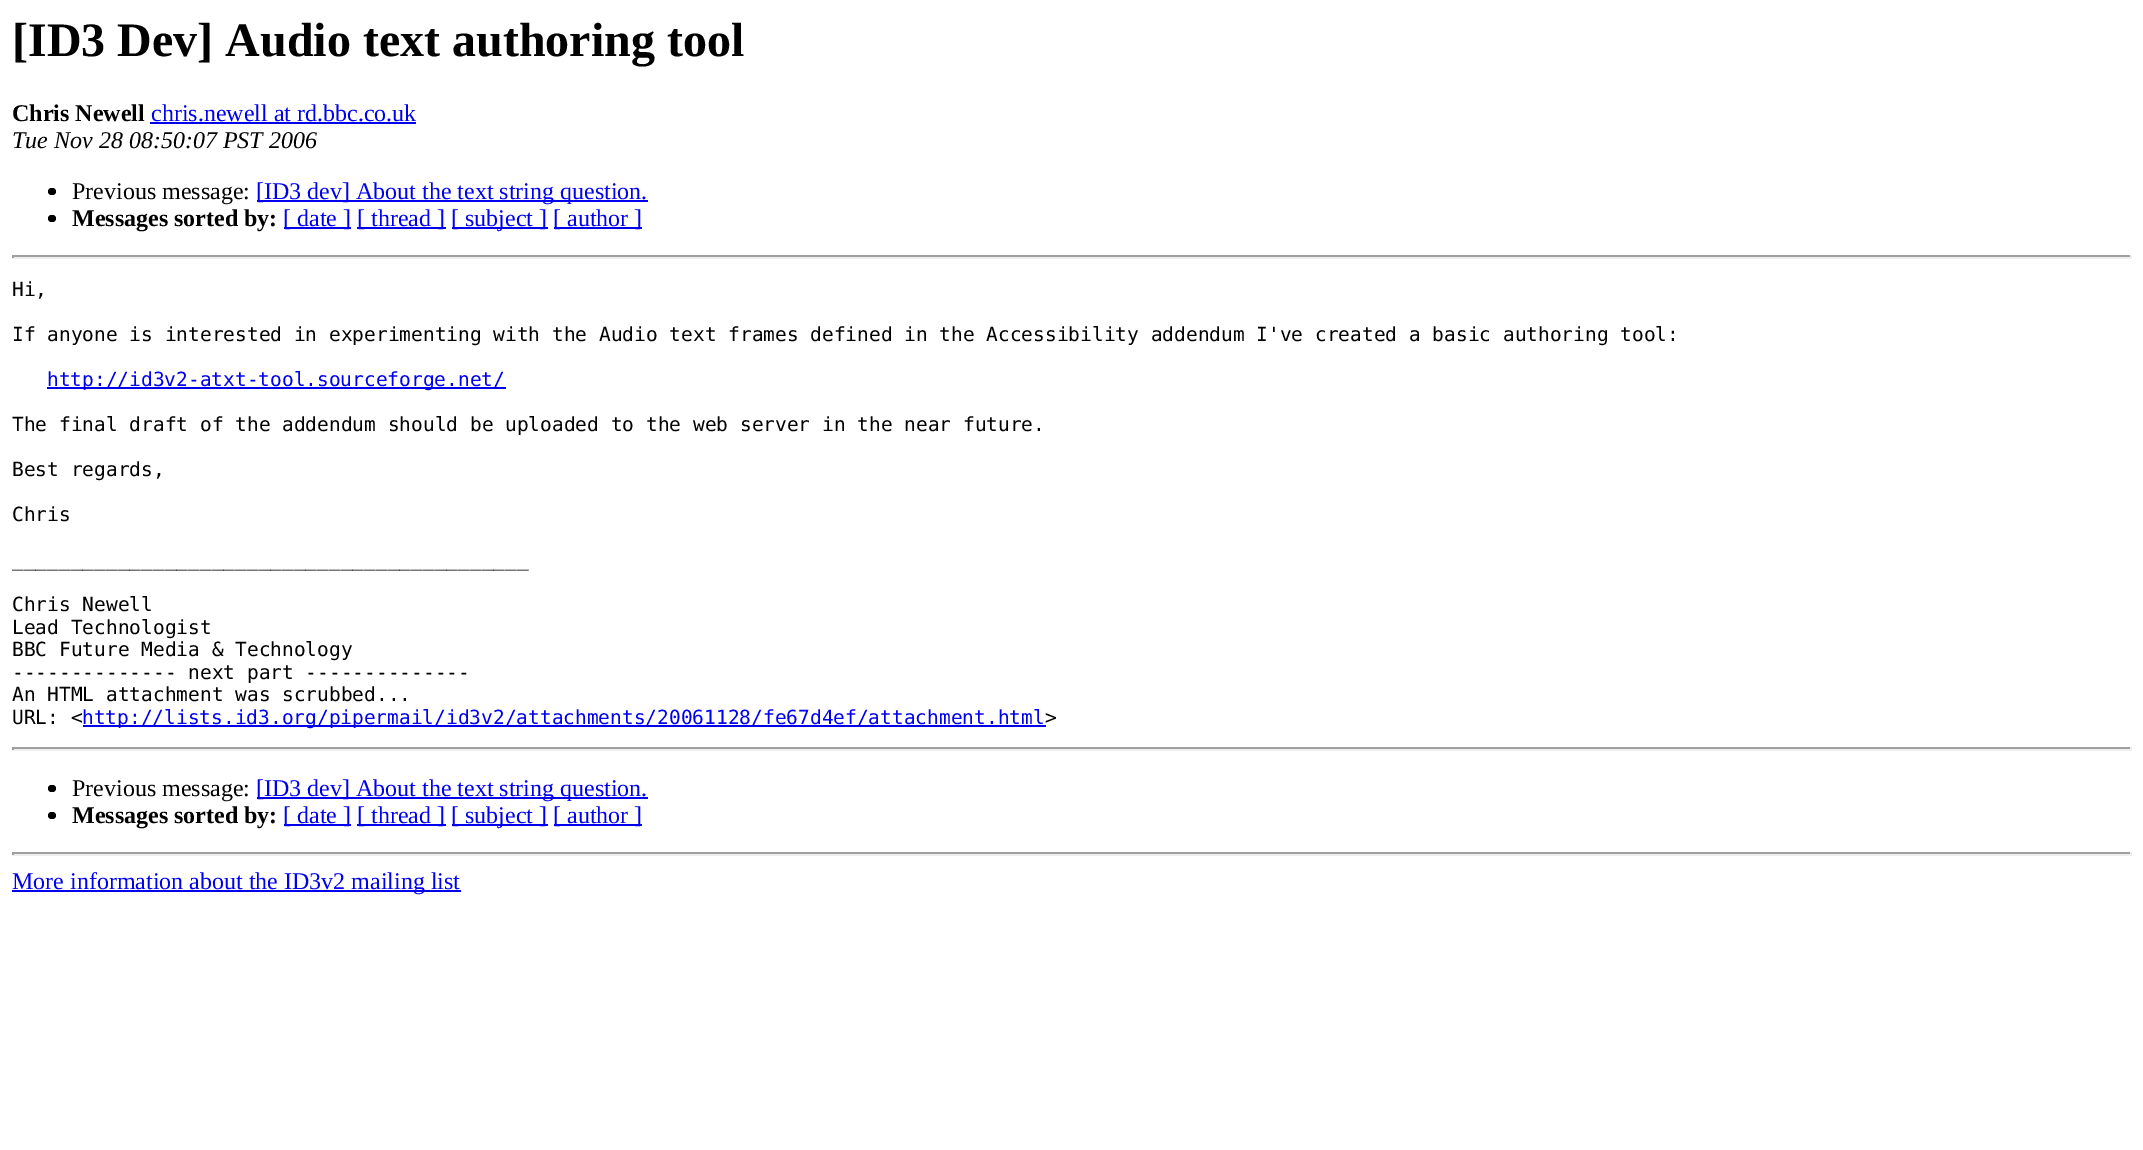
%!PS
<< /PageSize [2143 1150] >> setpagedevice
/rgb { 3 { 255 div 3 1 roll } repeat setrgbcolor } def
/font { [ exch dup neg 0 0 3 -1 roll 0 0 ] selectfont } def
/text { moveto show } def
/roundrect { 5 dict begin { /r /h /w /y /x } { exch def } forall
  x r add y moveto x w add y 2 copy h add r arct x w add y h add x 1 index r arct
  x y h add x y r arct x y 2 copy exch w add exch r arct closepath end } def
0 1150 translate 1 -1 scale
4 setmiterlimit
255 255 255 rgb
0 0 2143 1150 rectfill
0 0 238 rgb
150 122 266 2 rectfill
0 0 0 rgb
48 188 8 7 3.5 roundrect fill
0 0 238 rgb
257 200 391 2 rectfill
0 0 0 rgb
48 215 8 7 3.5 roundrect fill
0 0 238 rgb
284 227 67 2 rectfill
357 227 89 2 rectfill
452 227 96 2 rectfill
554 227 88 2 rectfill
159 159 159 rgb
12 255 2120 2 rectfill
238 238 238 rgb
2130 255 2 3 rectfill
12 257 2120 2 rectfill
159 159 159 rgb
12 255 2 3 rectfill
0 0 238 rgb
47 387 459 2 rectfill
83 725 963 2 rectfill
159 159 159 rgb
12 747 2120 2 rectfill
238 238 238 rgb
2130 747 2 3 rectfill
12 749 2120 2 rectfill
159 159 159 rgb
12 747 2 3 rectfill
0 0 0 rgb
48 785 8 7 3.5 roundrect fill
0 0 238 rgb
257 797 391 2 rectfill
0 0 0 rgb
48 812 8 7 3.5 roundrect fill
0 0 238 rgb
284 824 67 2 rectfill
357 824 89 2 rectfill
452 824 96 2 rectfill
554 824 88 2 rectfill
159 159 159 rgb
12 852 2120 2 rectfill
238 238 238 rgb
2130 852 2 3 rectfill
12 854 2120 2 rectfill
159 159 159 rgb
12 852 2 3 rectfill
0 0 238 rgb
12 890 449 2 rectfill
/LiberationSerif-Bold 48 font
0 0 0 rgb
([ID3 Dev] Audio text authoring tool) 12 56 text
/LiberationSerif-Bold 24 font
(Chris Newell) 12 121 text
/LiberationSerif-Regular 24 font
0 0 238 rgb
(chris.newell at rd.bbc.co.uk) 151 121 text
/LiberationSerif-Italic 24 font
0 0 0 rgb
(Tue Nov 28 08:50:07 PST 2006) 12 148 text
/LiberationSerif-Regular 24 font
(Previous message:) 72 199 text
0 0 238 rgb
([ID3 dev] About the text string question.) 256 199 text
/LiberationSerif-Bold 24 font
0 0 0 rgb
(Messages sorted by:) 72 226 text
/LiberationSerif-Regular 24 font
0 0 238 rgb
([ date ]) 283 226 text
([ thread ]) 357 226 text
([ subject ]) 451 226 text
([ author ]) 553 226 text
/DejaVuSansMono-Regular 19.5 font
0 0 0 rgb
(Hi,) 12 296 text
(If anyone is interested in experimenting with the Audio text frames defined in the Accessibility addendum I've created a basic authoring tool:) 12 341 text
0 0 238 rgb
(http://id3v2-atxt-tool.sourceforge.net/) 47 386 text
0 0 0 rgb
(The final draft of the addendum should be uploaded to the web server in the near future.) 12 431 text
(Best regards,) 12 476 text
(Chris) 12 521 text
(____________________________________________) 12 566 text
(Chris Newell) 12 611 text
(Lead Technologist) 12 634 text
(BBC Future Media & Technology) 12 656 text
(-------------- next part --------------) 12 679 text
(An HTML attachment was scrubbed...) 12 701 text
(URL: <) 12 724 text
0 0 238 rgb
(http://lists.id3.org/pipermail/id3v2/attachments/20061128/fe67d4ef/attachment.html) 82 724 text
0 0 0 rgb
(>) 1045 724 text
/LiberationSerif-Regular 24 font
(Previous message:) 72 796 text
0 0 238 rgb
([ID3 dev] About the text string question.) 256 796 text
/LiberationSerif-Bold 24 font
0 0 0 rgb
(Messages sorted by:) 72 823 text
/LiberationSerif-Regular 24 font
0 0 238 rgb
([ date ]) 283 823 text
([ thread ]) 357 823 text
([ subject ]) 451 823 text
([ author ]) 553 823 text
(More information about the ID3v2 mailing list) 12 889 text
showpage
